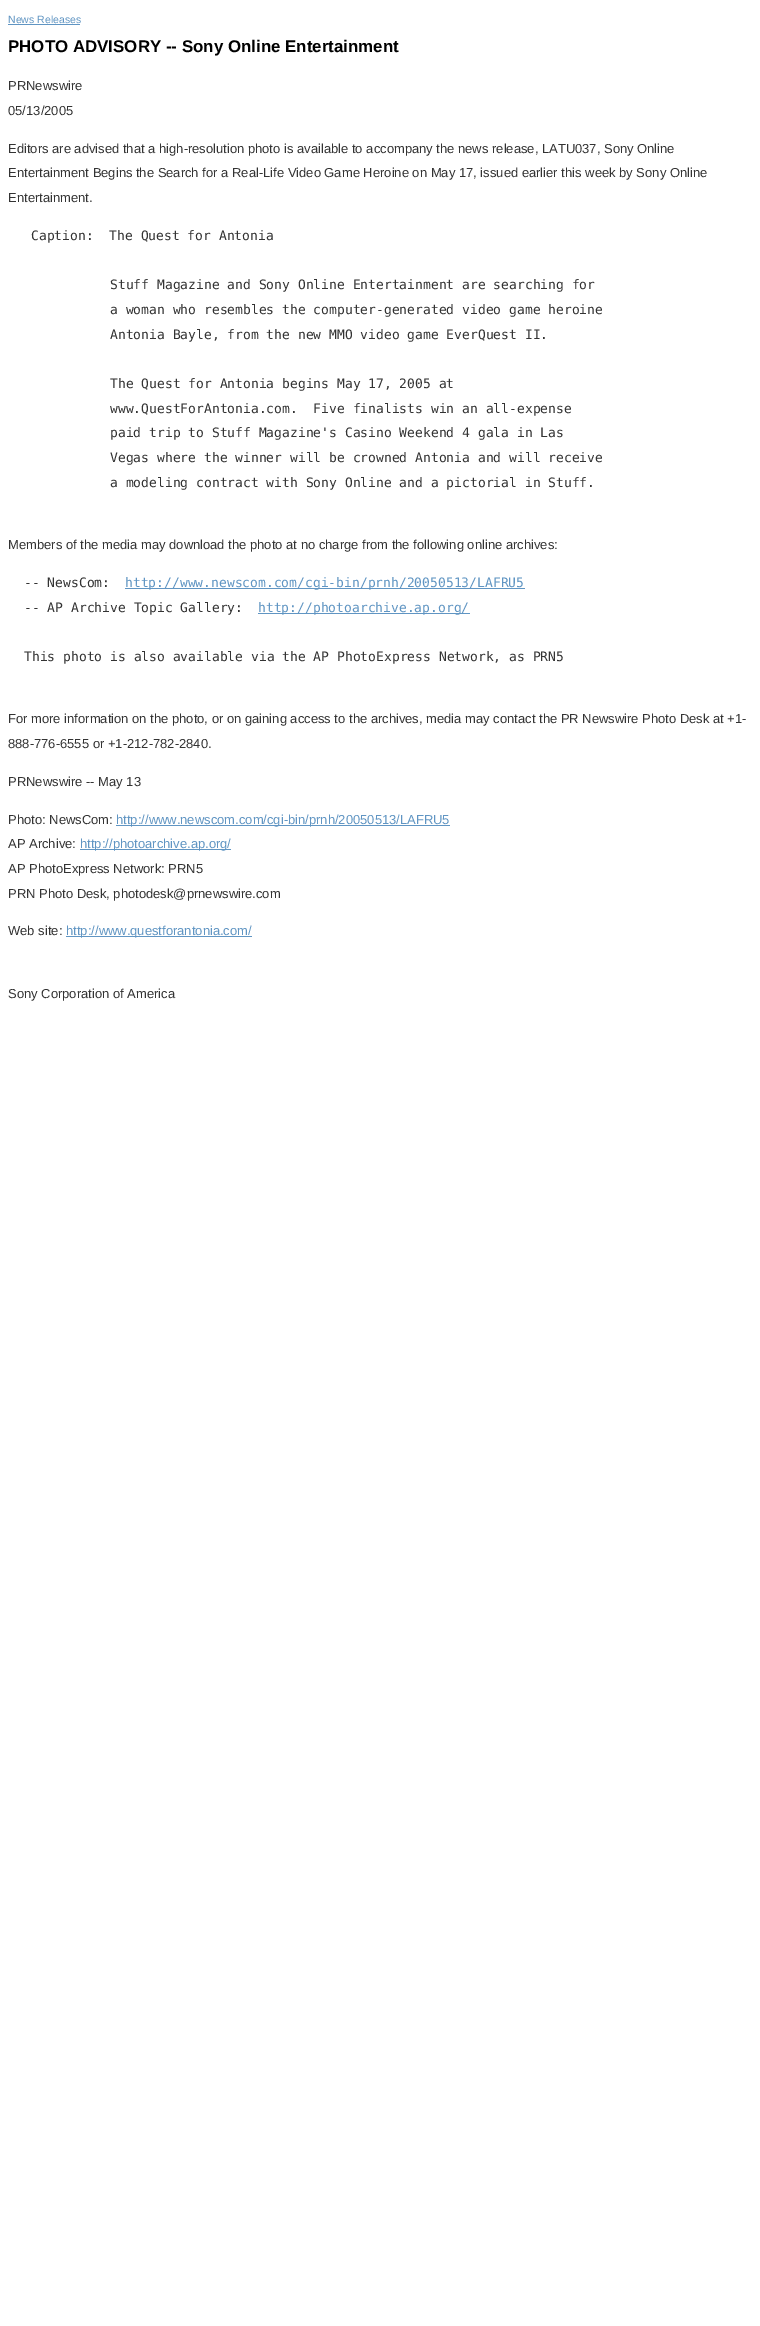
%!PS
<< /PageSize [760 2326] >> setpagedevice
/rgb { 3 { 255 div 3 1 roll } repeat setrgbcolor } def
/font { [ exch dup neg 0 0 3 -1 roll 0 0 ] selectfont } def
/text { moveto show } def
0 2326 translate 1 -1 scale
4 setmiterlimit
255 255 255 rgb
0 0 760 2326 rectfill
96 149 195 rgb
8 24 72 1 rectfill
125 588 400 1 rectfill
258 613 212 1 rectfill
116 825 334 1 rectfill
80 849 151 1 rectfill
66 936 186 1 rectfill
/LiberationSans-Regular 10.5 font
(News Releases) 8 23 text
/LiberationSans-Bold 16.9 font
0 0 0 rgb
(PHOTO ADVISORY -- Sony Online Entertainment) 8 52 text
/LiberationSans-Regular 13 font
51 51 51 rgb
(PRNewswire) 8 90 text
(05/13/2005) 8 115 text
(Editors are advised that a high-resolution photo is available to accompany the news release, LATU037, Sony Online) 8 153 text
(Entertainment Begins the Search for a Real-Life Video Game Heroine on May 17, issued earlier this week by Sony Online) 8 177 text
(Entertainment.) 8 202 text
/DejaVuSansMono-Regular 13 font
(Caption:  The Quest for Antonia) 31 240 text
(Stuff Magazine and Sony Online Entertainment are searching for) 110 289 text
(a woman who resembles the computer-generated video game heroine) 110 314 text
(Antonia Bayle, from the new MMO video game EverQuest II.) 110 339 text
(The Quest for Antonia begins May 17, 2005 at) 110 388 text
(www.QuestForAntonia.com.  Five finalists win an all-expense) 110 413 text
(paid trip to Stuff Magazine's Casino Weekend 4 gala in Las) 110 437 text
(Vegas where the winner will be crowned Antonia and will receive) 110 462 text
(a modeling contract with Sony Online and a pictorial in Stuff.) 110 487 text
/LiberationSans-Regular 13 font
(Members of the media may download the photo at no charge from the following online archives:) 8 549 text
/DejaVuSansMono-Regular 13 font
(-- NewsCom:) 24 587 text
96 149 195 rgb
(http://www.newscom.com/cgi-bin/prnh/20050513/LAFRU5) 125 587 text
51 51 51 rgb
(-- AP Archive Topic Gallery:) 24 612 text
96 149 195 rgb
(http://photoarchive.ap.org/) 258 612 text
51 51 51 rgb
(This photo is also available via the AP PhotoExpress Network, as PRN5) 24 661 text
/LiberationSans-Regular 13 font
(For more information on the photo, or on gaining access to the archives, media may contact the PR Newswire Photo Desk at +1-) 8 723 text
(888-776-6555 or +1-212-782-2840.) 8 748 text
(PRNewswire -- May 13) 8 786 text
(Photo: NewsCom:) 8 824 text
96 149 195 rgb
(http://www.newscom.com/cgi-bin/prnh/20050513/LAFRU5) 116 824 text
51 51 51 rgb
(AP Archive:) 8 848 text
96 149 195 rgb
(http://photoarchive.ap.org/) 80 848 text
51 51 51 rgb
(AP PhotoExpress Network: PRN5) 8 873 text
(PRN Photo Desk, photodesk@prnewswire.com) 8 898 text
(Web site:) 8 935 text
96 149 195 rgb
(http://www.questforantonia.com/) 66 935 text
51 51 51 rgb
(Sony Corporation of America) 8 998 text
showpage
